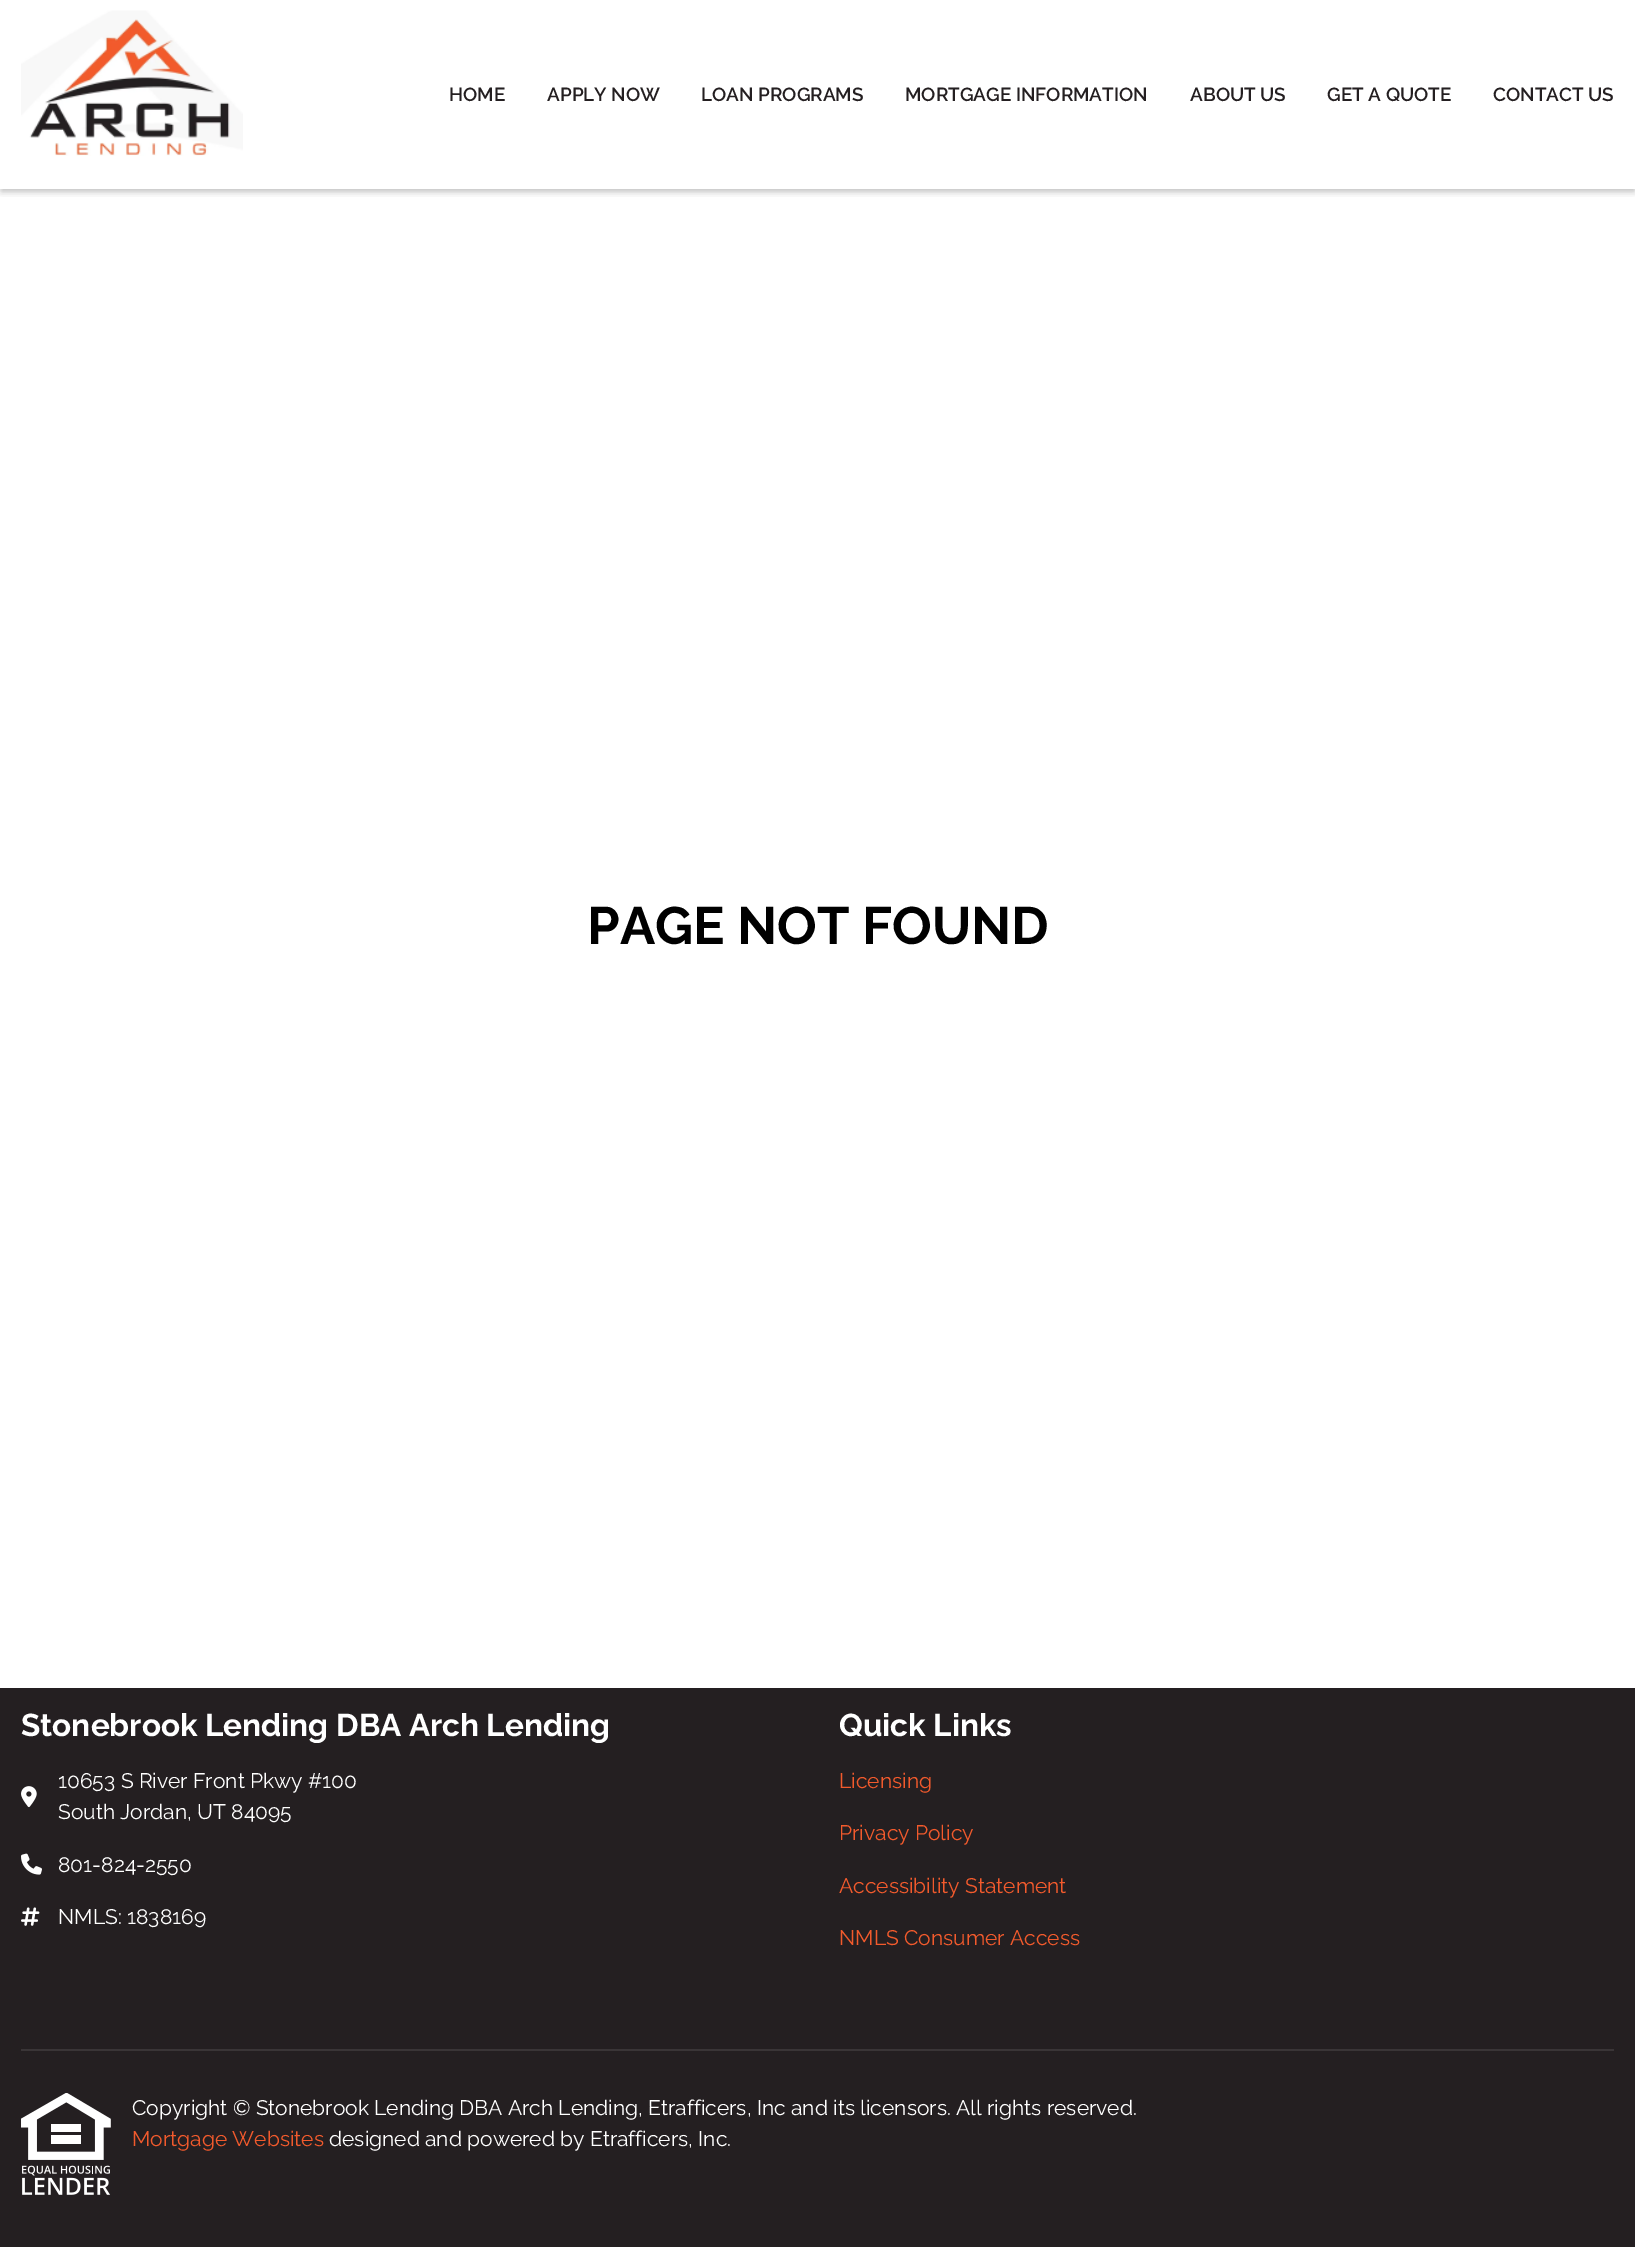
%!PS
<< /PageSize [1635 2247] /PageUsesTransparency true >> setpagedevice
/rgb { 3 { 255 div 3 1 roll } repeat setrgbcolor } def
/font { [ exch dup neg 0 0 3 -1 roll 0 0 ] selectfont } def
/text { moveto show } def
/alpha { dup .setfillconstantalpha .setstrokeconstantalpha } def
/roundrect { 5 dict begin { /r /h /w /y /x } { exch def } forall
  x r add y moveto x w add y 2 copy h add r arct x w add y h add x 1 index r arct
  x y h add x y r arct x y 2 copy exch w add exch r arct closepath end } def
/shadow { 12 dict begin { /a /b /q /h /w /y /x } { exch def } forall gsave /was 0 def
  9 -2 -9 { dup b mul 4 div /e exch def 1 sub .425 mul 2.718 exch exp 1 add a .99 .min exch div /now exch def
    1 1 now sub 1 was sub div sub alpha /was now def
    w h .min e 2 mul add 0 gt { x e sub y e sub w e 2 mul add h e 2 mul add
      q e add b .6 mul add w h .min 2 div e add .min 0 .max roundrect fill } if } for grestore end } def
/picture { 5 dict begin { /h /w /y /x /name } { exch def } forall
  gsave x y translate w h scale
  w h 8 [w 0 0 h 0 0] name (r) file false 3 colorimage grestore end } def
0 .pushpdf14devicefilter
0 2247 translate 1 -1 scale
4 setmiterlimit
255 255 255 rgb
0 0 1635 2247 rectfill
gsave
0 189 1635 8 rectclip
0 0 0 rgb
0 2 1635 189 0 7.5 0.1 shadow
grestore
gsave
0 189 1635 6 rectclip
0 0 0 rgb
2 5 1632 186 0 3 0.2 shadow
grestore
(img_01.rgb) 21 10 222 146 picture
36 31 33 rgb
0 1688 1635 559 rectfill
(img_02.rgb) 21 1786 16 22 picture
(img_03.rgb) 21 1853 21 22 picture
(img_04.rgb) 21 1907 19 19 picture
58 53 55 rgb
21 2049 1593 2 rectfill
(img_05.rgb) 21 2093 90 102 picture
/Raleway-SemiBold 18.9 font
36 31 33 rgb
(HOME) 449 101 text
(APPLY NOW) 547 101 text
(LOAN PROGRAMS) 701 101 text
(MORTGAGE INFORMATION) 905 101 text
(ABOUT US) 1190 101 text
(GET A QUOTE) 1327 101 text
(CONTACT US) 1493 101 text
/Raleway-Bold 52.5 font
0 0 0 rgb
(PAGE NOT FOUND) 587 944 text
/Raleway-Bold 31.5 font
255 255 255 rgb
(Stonebrook Lending DBA Arch Lending) 21 1736 text
/Raleway-Regular 21 font
(10653 S River Front Pkwy #100) 58 1788 text
(South Jordan, UT 84095) 58 1819 text
(801-824-2550) 58 1872 text
(NMLS: 1838169) 58 1924 text
/Raleway-Bold 31.5 font
(Quick Links) 839 1736 text
/Raleway-Regular 21 font
242 90 44 rgb
(Licensing) 839 1788 text
(Privacy Policy) 839 1840 text
(Accessibility Statement) 839 1893 text
(NMLS Consumer Access) 839 1945 text
255 255 255 rgb
(Copyright © Stonebrook Lending DBA Arch Lending, Etrafficers, Inc and its licensors. All rights reserved.) 132 2115 text
242 90 44 rgb
(Mortgage Websites) 132 2146 text
255 255 255 rgb
(designed and powered by Etrafficers, Inc.) 329 2146 text
.poppdf14devicefilter showpage
